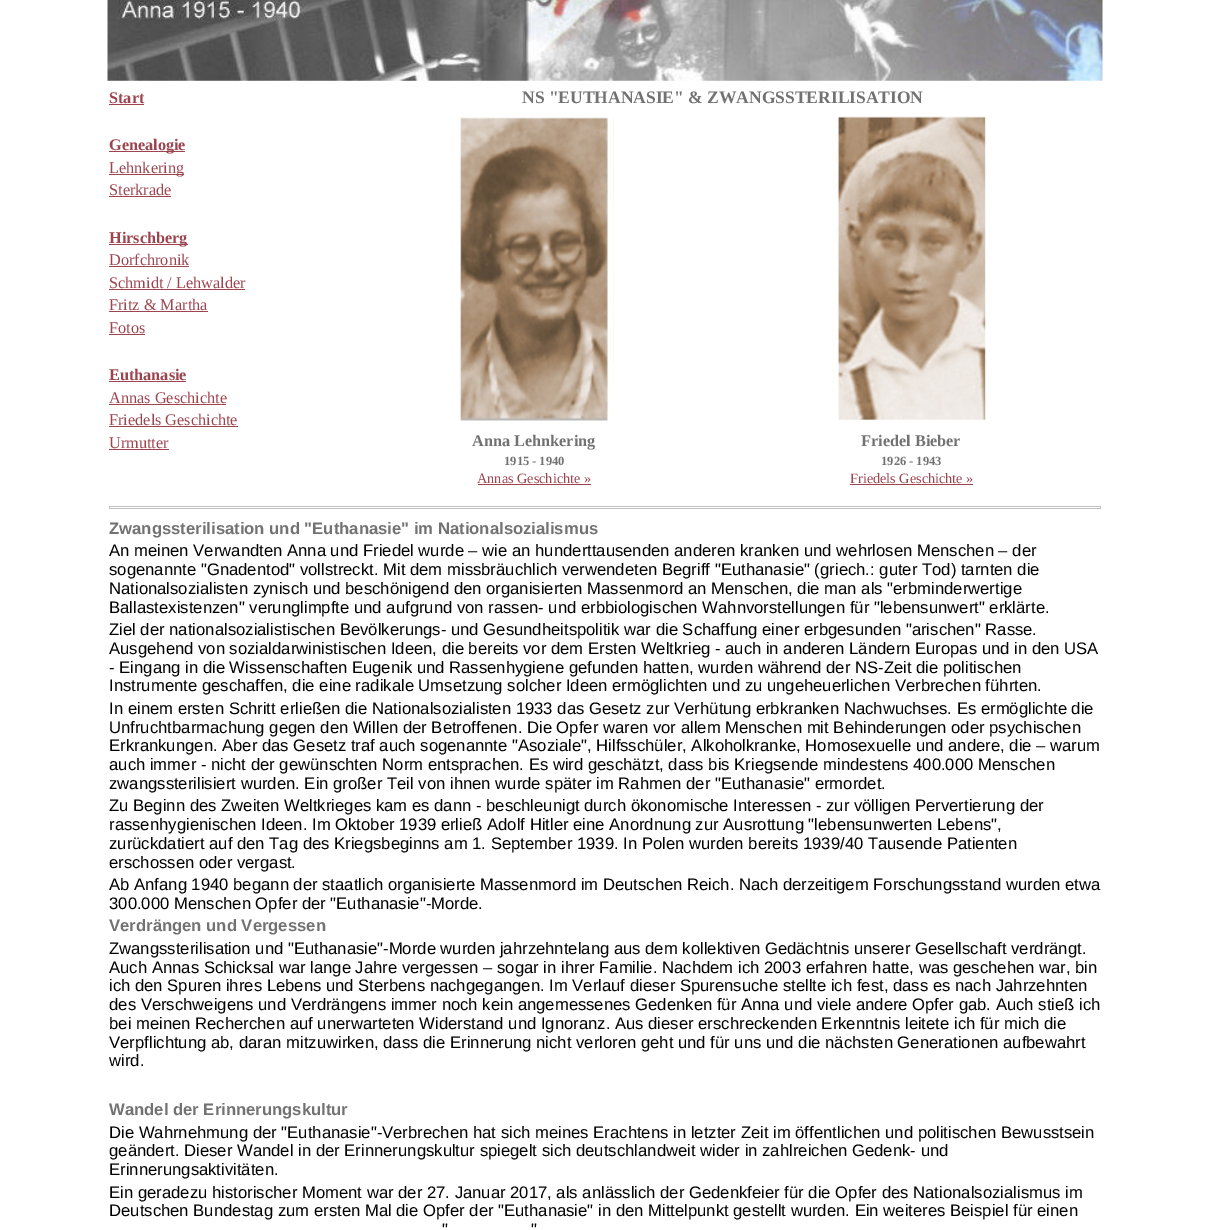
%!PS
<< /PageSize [1209 1230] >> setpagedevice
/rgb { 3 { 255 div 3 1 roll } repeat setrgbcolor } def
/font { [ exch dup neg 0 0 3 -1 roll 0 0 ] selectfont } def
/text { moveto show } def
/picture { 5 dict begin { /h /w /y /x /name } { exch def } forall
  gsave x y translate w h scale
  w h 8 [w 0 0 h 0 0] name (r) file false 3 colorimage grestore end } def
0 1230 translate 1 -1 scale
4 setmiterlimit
255 255 255 rgb
0 0 1209 1230 rectfill
(img_01.rgb) 107 0 996 81 picture
157 69 79 rgb
109 104 35 1 rectfill
109 151 76 1 rectfill
109 174 75 1 rectfill
109 196 62 1 rectfill
109 244 79 1 rectfill
109 266 80 1 rectfill
109 289 136 1 rectfill
109 311 99 1 rectfill
109 334 36 1 rectfill
109 381 77 1 rectfill
109 404 117 1 rectfill
109 426 129 1 rectfill
109 449 60 1 rectfill
(img_02.rgb) 459 117 155 304 picture
(img_03.rgb) 832 116 155 305 picture
478 484 113 1 rectfill
850 484 123 1 rectfill
192 192 192 rgb
110 508 990 1 rectfill
109 506 992 1 rectfill
1100 506 1 3 rectfill
109 506 1 3 rectfill
/LiberationSerif-Bold 16.25 font
157 69 79 rgb
(Start) 109 103 text
(Genealogie) 109 150 text
/LiberationSerif-Regular 16.25 font
(Lehnkering) 109 173 text
(Sterkrade) 109 195 text
/LiberationSerif-Bold 16.25 font
(Hirschberg) 109 243 text
/LiberationSerif-Regular 16.25 font
(Dorfchronik) 109 265 text
(Schmidt / Lehwalder) 109 288 text
(Fritz & Martha) 109 310 text
(Fotos) 109 333 text
/LiberationSerif-Bold 16.25 font
(Euthanasie) 109 380 text
/LiberationSerif-Regular 16.25 font
(Annas Geschichte) 109 403 text
(Friedels Geschichte) 109 425 text
(Urmutter) 109 448 text
/LiberationSerif-Bold 17.5 font
114 114 114 rgb
(NS "EUTHANASIE" & ZWANGSSTERILISATION) 522 103 text
/LiberationSerif-Bold 16.25 font
(Anna Lehnkering) 472 446 text
/LiberationSerif-Bold 12.5 font
(1915 - 1940) 504 465 text
/LiberationSerif-Regular 14.25 font
157 69 79 rgb
(Annas Geschichte ») 477 483 text
/LiberationSerif-Bold 16.25 font
114 114 114 rgb
(Friedel Bieber) 861 446 text
/LiberationSerif-Bold 12.5 font
(1926 - 1943) 881 465 text
/LiberationSerif-Regular 14.25 font
157 69 79 rgb
(Friedels Geschichte ») 850 483 text
/LiberationSans-Bold 16.67 font
114 114 114 rgb
(Zwangssterilisation und "Euthanasie" im Nationalsozialismus) 109 534 text
/LiberationSans-Regular 16.67 font
0 0 0 rgb
(An meinen Verwandten Anna und Friedel wurde – wie an hunderttausenden anderen kranken und wehrlosen Menschen – der) 109 556 text
(sogenannte "Gnadentod" vollstreckt. Mit dem missbräuchlich verwendeten Begriff "Euthanasie" \(griech.: guter Tod\) tarnten die) 109 575 text
(Nationalsozialisten zynisch und beschönigend den organisierten Massenmord an Menschen, die man als "erbminderwertige) 109 594 text
(Ballastexistenzen" verunglimpfte und aufgrund von rassen- und erbbiologischen Wahnvorstellungen für "lebensunwert" erklärte.) 109 613 text
(Ziel der nationalsozialistischen Bevölkerungs- und Gesundheitspolitik war die Schaffung einer erbgesunden "arischen" Rasse.) 109 635 text
(Ausgehend von sozialdarwinistischen Ideen, die bereits vor dem Ersten Weltkrieg - auch in anderen Ländern Europas und in den USA) 109 654 text
(- Eingang in die Wissenschaften Eugenik und Rassenhygiene gefunden hatten, wurden während der NS-Zeit die politischen) 109 673 text
(Instrumente geschaffen, die eine radikale Umsetzung solcher Ideen ermöglichten und zu ungeheuerlichen Verbrechen führten.) 109 691 text
(In einem ersten Schritt erließen die Nationalsozialisten 1933 das Gesetz zur Verhütung erbkranken Nachwuchses. Es ermöglichte die) 109 714 text
(Unfruchtbarmachung gegen den Willen der Betroffenen. Die Opfer waren vor allem Menschen mit Behinderungen oder psychischen) 109 733 text
(Erkrankungen. Aber das Gesetz traf auch sogenannte "Asoziale", Hilfsschüler, Alkoholkranke, Homosexuelle und andere, die – warum) 109 751 text
(auch immer - nicht der gewünschten Norm entsprachen. Es wird geschätzt, dass bis Kriegsende mindestens 400.000 Menschen) 109 770 text
(zwangssterilisiert wurden. Ein großer Teil von ihnen wurde später im Rahmen der "Euthanasie" ermordet.) 109 789 text
(Zu Beginn des Zweiten Weltkrieges kam es dann - beschleunigt durch ökonomische Interessen - zur völligen Pervertierung der) 109 811 text
(rassenhygienischen Ideen. Im Oktober 1939 erließ Adolf Hitler eine Anordnung zur Ausrottung "lebensunwerten Lebens",) 109 830 text
(zurückdatiert auf den Tag des Kriegsbeginns am 1. September 1939. In Polen wurden bereits 1939/40 Tausende Patienten) 109 849 text
(erschossen oder vergast.) 109 868 text
(Ab Anfang 1940 begann der staatlich organisierte Massenmord im Deutschen Reich. Nach derzeitigem Forschungsstand wurden etwa) 109 890 text
(300.000 Menschen Opfer der "Euthanasie"-Morde.) 109 909 text
/LiberationSans-Bold 16.67 font
114 114 114 rgb
(Verdrängen und Vergessen) 109 931 text
/LiberationSans-Regular 16.67 font
0 0 0 rgb
(Zwangssterilisation und "Euthanasie"-Morde wurden jahrzehntelang aus dem kollektiven Gedächtnis unserer Gesellschaft verdrängt.) 109 954 text
(Auch Annas Schicksal war lange Jahre vergessen – sogar in ihrer Familie. Nachdem ich 2003 erfahren hatte, was geschehen war, bin) 109 973 text
(ich den Spuren ihres Lebens und Sterbens nachgegangen. Im Verlauf dieser Spurensuche stellte ich fest, dass es nach Jahrzehnten) 109 991 text
(des Verschweigens und Verdrängens immer noch kein angemessenes Gedenken für Anna und viele andere Opfer gab. Auch stieß ich) 109 1010 text
(bei meinen Recherchen auf unerwarteten Widerstand und Ignoranz. Aus dieser erschreckenden Erkenntnis leitete ich für mich die) 109 1029 text
(Verpflichtung ab, daran mitzuwirken, dass die Erinnerung nicht verloren geht und für uns und die nächsten Generationen aufbewahrt) 109 1048 text
(wird.) 109 1066 text
/LiberationSans-Bold 16.67 font
114 114 114 rgb
(Wandel der Erinnerungskultur) 109 1115 text
/LiberationSans-Regular 16.67 font
0 0 0 rgb
(Die Wahrnehmung der "Euthanasie"-Verbrechen hat sich meines Erachtens in letzter Zeit im öffentlichen und politischen Bewusstsein) 109 1138 text
(geändert. Dieser Wandel in der Erinnerungskultur spiegelt sich deutschlandweit wider in zahlreichen Gedenk- und) 109 1156 text
(Erinnerungsaktivitäten.) 109 1175 text
(Ein geradezu historischer Moment war der 27. Januar 2017, als anlässlich der Gedenkfeier für die Opfer des Nationalsozialismus im) 109 1198 text
(Deutschen Bundestag zum ersten Mal die Opfer der "Euthanasie" in den Mittelpunkt gestellt wurden. Ein weiteres Beispiel für einen) 109 1216 text
(") 442 1235 text
(") 531 1235 text
showpage
